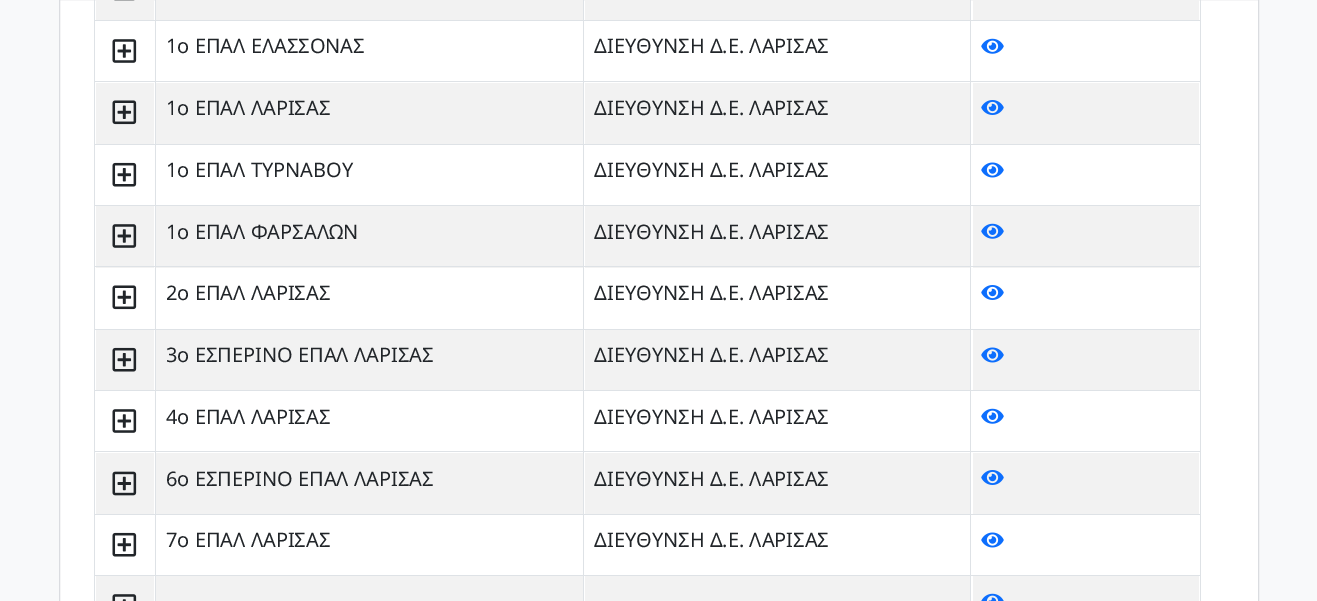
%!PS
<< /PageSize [1317 601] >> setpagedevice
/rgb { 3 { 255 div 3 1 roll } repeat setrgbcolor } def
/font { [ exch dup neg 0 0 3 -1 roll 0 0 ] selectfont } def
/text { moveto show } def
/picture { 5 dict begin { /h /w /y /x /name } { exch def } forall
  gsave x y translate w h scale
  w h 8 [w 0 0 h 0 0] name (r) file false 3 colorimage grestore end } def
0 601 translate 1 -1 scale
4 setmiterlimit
248 249 250 rgb
0 0 1317 601 rectfill
255 255 255 rgb
59.5 -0.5 moveto 1199 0 rlineto 0 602 rlineto -1199 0 rlineto closepath gsave fill grestore
218 220 224 rgb
stroke
222 226 230 rgb
94 20 1107 1 rectfill
242 242 242 rgb
96 0 58 20 rectfill
(img_01.rgb) 114 0 21 1 picture
156 0 427 20 rectfill
585 0 385 20 rectfill
973 0 226 20 rectfill
96 576 58 25 rectfill
222 226 230 rgb
94 81 1107 1 rectfill
94 144 1107 1 rectfill
94 205 1107 1 rectfill
242 242 242 rgb
96 206 58 62 rectfill
156 206 427 62 rectfill
585 206 385 62 rectfill
973 206 226 62 rectfill
222 226 230 rgb
94 266 1107 1 rectfill
94 329 1107 1 rectfill
94 390 1107 1 rectfill
94 451 1107 1 rectfill
94 514 1107 1 rectfill
94 575 1107 1 rectfill
94 0 1 601 rectfill
(img_02.rgb) 112 594 25 7 picture
242 242 242 rgb
156 576 427 25 rectfill
222 226 230 rgb
155 0 1 601 rectfill
242 242 242 rgb
585 576 385 25 rectfill
222 226 230 rgb
583 0 1 601 rectfill
242 242 242 rgb
973 576 226 25 rectfill
222 226 230 rgb
1200 0 1 601 rectfill
970 0 1 601 rectfill
(img_03.rgb) 981 593 23 8 picture
(img_04.rgb) 112 39 25 24 picture
(img_05.rgb) 981 38 23 16 picture
242 242 242 rgb
96 83 58 61 rectfill
(img_06.rgb) 112 100 25 25 picture
156 83 427 61 rectfill
585 83 385 61 rectfill
973 83 226 61 rectfill
(img_07.rgb) 981 100 23 15 picture
(img_08.rgb) 112 162 25 25 picture
(img_09.rgb) 981 162 23 16 picture
(img_10.rgb) 112 224 25 24 picture
(img_11.rgb) 981 223 23 16 picture
(img_12.rgb) 112 285 25 25 picture
(img_13.rgb) 981 285 23 15 picture
96 330 58 60 rectfill
(img_14.rgb) 112 347 25 25 picture
156 330 427 60 rectfill
585 330 385 60 rectfill
973 330 226 60 rectfill
(img_15.rgb) 981 347 23 16 picture
(img_04.rgb) 112 409 25 24 picture
(img_05.rgb) 981 408 23 16 picture
96 453 58 61 rectfill
(img_16.rgb) 112 471 25 25 picture
156 453 427 61 rectfill
585 453 385 61 rectfill
973 453 226 61 rectfill
(img_07.rgb) 981 470 23 15 picture
(img_08.rgb) 112 532 25 25 picture
(img_09.rgb) 981 532 23 16 picture
/NotoSans-Regular 20 font
33 37 41 rgb
(1ο ΕΠΑΛ ΕΛΑΣΣΟΝΑΣ) 166 53 text
(ΔΙΕΥΘΥΝΣΗ Δ.Ε. ΛΑΡΙΣΑΣ) 594 53 text
(1ο ΕΠΑΛ ΛΑΡΙΣΑΣ) 166 115 text
(ΔΙΕΥΘΥΝΣΗ Δ.Ε. ΛΑΡΙΣΑΣ) 594 115 text
(1ο ΕΠΑΛ ΤΥΡΝΑΒΟΥ) 166 177 text
(ΔΙΕΥΘΥΝΣΗ Δ.Ε. ΛΑΡΙΣΑΣ) 594 177 text
(1ο ΕΠΑΛ ΦΑΡΣΑΛΩΝ) 166 239 text
(ΔΙΕΥΘΥΝΣΗ Δ.Ε. ΛΑΡΙΣΑΣ) 594 239 text
(2ο ΕΠΑΛ ΛΑΡΙΣΑΣ) 166 300 text
(ΔΙΕΥΘΥΝΣΗ Δ.Ε. ΛΑΡΙΣΑΣ) 594 300 text
(3ο ΕΣΠΕΡΙΝΟ ΕΠΑΛ ΛΑΡΙΣΑΣ) 166 362 text
(ΔΙΕΥΘΥΝΣΗ Δ.Ε. ΛΑΡΙΣΑΣ) 594 362 text
(4ο ΕΠΑΛ ΛΑΡΙΣΑΣ) 166 424 text
(ΔΙΕΥΘΥΝΣΗ Δ.Ε. ΛΑΡΙΣΑΣ) 594 424 text
(6ο ΕΣΠΕΡΙΝΟ ΕΠΑΛ ΛΑΡΙΣΑΣ) 166 486 text
(ΔΙΕΥΘΥΝΣΗ Δ.Ε. ΛΑΡΙΣΑΣ) 594 486 text
(7ο ΕΠΑΛ ΛΑΡΙΣΑΣ) 166 547 text
(ΔΙΕΥΘΥΝΣΗ Δ.Ε. ΛΑΡΙΣΑΣ) 594 547 text
showpage
